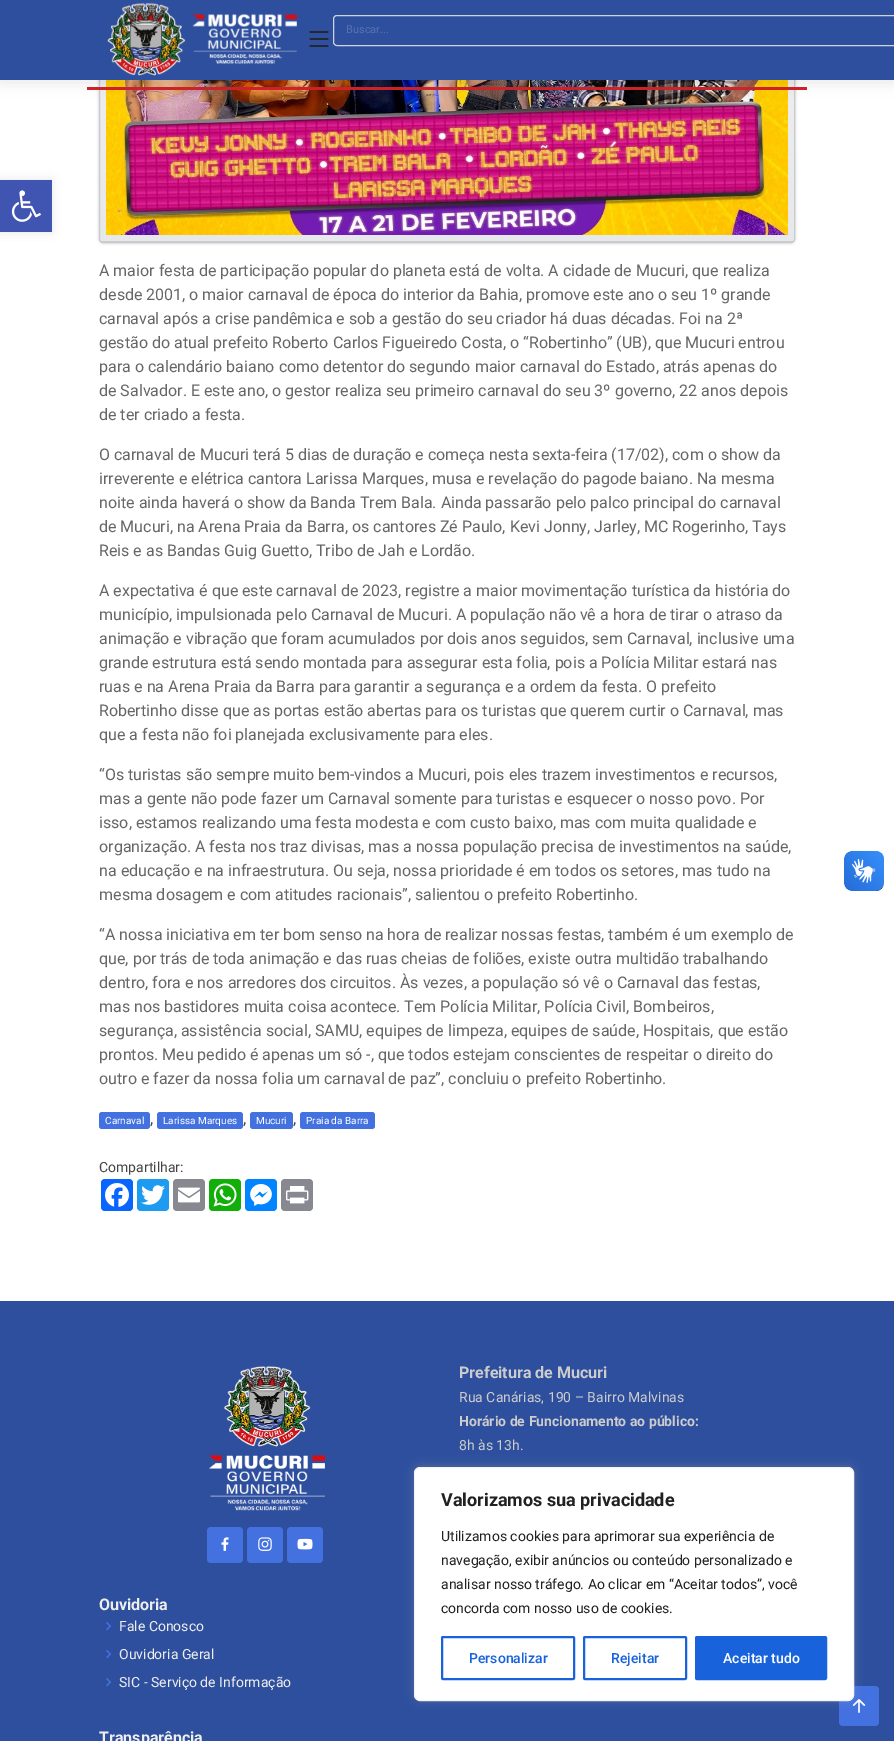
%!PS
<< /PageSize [894 1741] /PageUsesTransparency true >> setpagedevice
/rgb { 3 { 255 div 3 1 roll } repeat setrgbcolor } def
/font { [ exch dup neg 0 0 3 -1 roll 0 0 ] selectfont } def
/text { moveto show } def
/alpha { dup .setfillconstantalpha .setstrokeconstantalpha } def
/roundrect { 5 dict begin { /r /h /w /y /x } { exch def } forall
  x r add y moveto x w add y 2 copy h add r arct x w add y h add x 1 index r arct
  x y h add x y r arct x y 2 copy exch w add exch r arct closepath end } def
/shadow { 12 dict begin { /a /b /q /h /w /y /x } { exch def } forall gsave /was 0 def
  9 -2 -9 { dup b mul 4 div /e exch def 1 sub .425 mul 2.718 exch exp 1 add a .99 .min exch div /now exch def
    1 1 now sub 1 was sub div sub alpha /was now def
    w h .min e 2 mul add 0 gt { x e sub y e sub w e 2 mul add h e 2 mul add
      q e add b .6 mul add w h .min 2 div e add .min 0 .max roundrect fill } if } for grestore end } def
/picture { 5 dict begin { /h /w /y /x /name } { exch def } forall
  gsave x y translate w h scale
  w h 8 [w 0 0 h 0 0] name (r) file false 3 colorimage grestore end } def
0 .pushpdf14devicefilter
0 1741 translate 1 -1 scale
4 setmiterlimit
255 255 255 rgb
0 0 894 1741 rectfill
0 0 0 rgb
99 -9 696 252 4 1.5 0.2 shadow
gsave 103 -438 moveto 688 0 rlineto 2 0 3 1 3 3 rcurveto 0 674 rlineto 0 1 -1 2 -3 2 rcurveto -688 0 rlineto -2 0 -3 -1 -3 -2 rcurveto 0 -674 rlineto 0 -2 1 -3 3 -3 rcurveto closepath clip newpath
<< /ShadingType 2 /ColorSpace /DeviceRGB /Coords [447 -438 447 241] /Extend [true true] /Function << /FunctionType 2 /Domain [0 1] /C0 [1 1 1] /C1 [0.906 0.91 0.922] /N 1 >> >> shfill grestore
201 203 205 rgb
99.5 -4.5 695 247 3.5 roundrect stroke
(img_04.rgb) 106 80 682 155 picture
0 0 0 rgb
0 2 894 80 0 7.5 0.1 shadow
46 79 158 rgb
0 0 894 80 rectfill
204 34 41 rgb
87 87 720 3 rectfill
(img_01.rgb) 107 2 190 74 picture
206 212 218 rgb
333.5 15.5 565 30 3.5 roundrect stroke
(img_02.rgb) 309 31 20 16 picture
0 0 0 rgb
0 180 52 52 0 5 0.1 shadow
64 84 178 rgb
0 180 52 52 rectfill
(img_03.rgb) 11 190 30 32 picture
201 203 205 rgb
101 241 692 1 rectfill
67 113 224 rgb
99 1112 51 17 3 roundrect fill
157 1112 86 17 3 roundrect fill
250 1112 43 17 3 roundrect fill
300 1112 75 17 3 roundrect fill
8 102 255 rgb
101 1179 32 32 4 roundrect fill
(img_05.rgb) 105 1183 24 24 picture
29 155 240 rgb
137 1179 32 32 4 roundrect fill
(img_06.rgb) 141 1185 24 20 picture
136 137 144 rgb
173 1179 32 32 4 roundrect fill
(img_07.rgb) 178 1187 22 16 picture
18 175 10 rgb
209 1179 32 32 4 roundrect fill
(img_08.rgb) 213 1183 24 24 picture
0 132 255 rgb
245 1179 32 32 4 roundrect fill
(img_09.rgb) 250 1184 22 22 picture
136 137 144 rgb
281 1179 32 32 4 roundrect fill
(img_10.rgb) 286 1186 23 18 picture
(img_11.rgb) 844 851 40 40 picture
(img_12.rgb) 844 851 40 40 picture
46 79 158 rgb
0 1301 894 440 rectfill
(img_13.rgb) 209 1366 116 145 picture
67 113 224 rgb
207 1527 36 36 4 roundrect fill
(img_14.rgb) 221 1537 8 14 picture
247 1527 36 36 4 roundrect fill
(img_15.rgb) 258 1537 14 14 picture
287 1527 36 36 4 roundrect fill
(img_16.rgb) 297 1538 16 12 picture
(img_17.rgb) 106 1622 6 9 picture
(img_17.rgb) 106 1650 6 9 picture
(img_17.rgb) 106 1678 6 9 picture
839 1686 40 40 4 roundrect fill
(img_18.rgb) 852 1699 14 14 picture
172 171 171 rgb
414 1466 440 234 6 5 0.3 shadow
255 255 255 rgb
414.5 1467.5 439 233 5.5 roundrect gsave fill grestore
244 244 244 rgb
stroke
24 99 220 rgb
2 setlinewidth
442 1637 132 42 1 roundrect stroke
584 1637 102 42 1 roundrect stroke
696 1637 130 42 1 roundrect gsave fill grestore
stroke
/Roboto-Regular 11 font
88 114 177 rgb
(Buscar...) 346 33 text
/Roboto-Regular 16 font
102 102 102 rgb
(A maior festa de participação popular do planeta está de volta. A cidade de Mucuri, que realiza) 99 276 text
(desde 2001, o maior carnaval de época do interior da Bahia, promove este ano o seu 1º grande) 99 300 text
(carnaval após a crise pandêmica e sob a gestão do seu criador há duas décadas. Foi na 2ª) 99 324 text
(gestão do atual prefeito Roberto Carlos Figueiredo Costa, o “Robertinho” \(UB\), que Mucuri entrou) 99 348 text
(para o calendário baiano como detentor do segundo maior carnaval do Estado, atrás apenas do) 99 372 text
(de Salvador. E este ano, o gestor realiza seu primeiro carnaval do seu 3º governo, 22 anos depois) 99 396 text
(de ter criado a festa.) 99 420 text
(O carnaval de Mucuri terá 5 dias de duração e começa nesta sexta-feira \(17/02\), com o show da) 99 460 text
(irreverente e elétrica cantora Larissa Marques, musa e revelação do pagode baiano. Na mesma) 99 484 text
(noite ainda haverá o show da Banda Trem Bala. Ainda passarão pelo palco principal do carnaval) 99 508 text
(de Mucuri, na Arena Praia da Barra, os cantores Zé Paulo, Kevi Jonny, Jarley, MC Rogerinho, Tays) 99 532 text
(Reis e as Bandas Guig Guetto, Tribo de Jah e Lordão.) 99 556 text
(A expectativa é que este carnaval de 2023, registre a maior movimentação turística da história do) 99 596 text
(município, impulsionada pelo Carnaval de Mucuri. A população não vê a hora de tirar o atraso da) 99 620 text
(animação e vibração que foram acumulados por dois anos seguidos, sem Carnaval, inclusive uma) 99 644 text
(grande estrutura está sendo montada para assegurar esta folia, pois a Polícia Militar estará nas) 99 668 text
(ruas e na Arena Praia da Barra para garantir a segurança e a ordem da festa. O prefeito) 99 692 text
(Robertinho disse que as portas estão abertas para os turistas que querem curtir o Carnaval, mas) 99 716 text
(que a festa não foi planejada exclusivamente para eles.) 99 740 text
(“Os turistas são sempre muito bem-vindos a Mucuri, pois eles trazem investimentos e recursos,) 99 780 text
(mas a gente não pode fazer um Carnaval somente para turistas e esquecer o nosso povo. Por) 99 804 text
(isso, estamos realizando uma festa modesta e com custo baixo, mas com muita qualidade e) 99 828 text
(organização. A festa nos traz divisas, mas a nossa população precisa de investimentos na saúde,) 99 852 text
(na educação e na infraestrutura. Ou seja, nossa prioridade é em todos os setores, mas tudo na) 99 876 text
(mesma dosagem e com atitudes racionais”, salientou o prefeito Robertinho.) 99 900 text
(“A nossa iniciativa em ter bom senso na hora de realizar nossas festas, também é um exemplo de) 99 940 text
(que, por trás de toda animação e das ruas cheias de foliões, existe outra multidão trabalhando) 99 964 text
(dentro, fora e nos arredores dos circuitos. Às vezes, a população só vê o Carnaval das festas,) 99 988 text
(mas nos bastidores muita coisa acontece. Tem Polícia Militar, Polícia Civil, Bombeiros,) 99 1012 text
(segurança, assistência social, SAMU, equipes de limpeza, equipes de saúde, Hospitais, que estão) 99 1036 text
(prontos. Meu pedido é apenas um só -, que todos estejam conscientes de respeitar o direito do) 99 1060 text
(outro e fazer da nossa folia um carnaval de paz”, concluiu o prefeito Robertinho.) 99 1084 text
/Roboto-Regular 10 font
255 255 255 rgb
(Carnaval) 105 1124 text
/Roboto-Regular 16 font
68 68 68 rgb
(,) 150 1124 text
/Roboto-Regular 10 font
255 255 255 rgb
(Larissa Marques) 163 1124 text
/Roboto-Regular 16 font
68 68 68 rgb
(,) 243 1124 text
/Roboto-Regular 10 font
255 255 255 rgb
(Mucuri) 256 1124 text
/Roboto-Regular 16 font
68 68 68 rgb
(,) 293 1124 text
/Roboto-Regular 10 font
255 255 255 rgb
(Praia da Barra) 306 1124 text
/Roboto-Regular 14 font
68 68 68 rgb
(Compartilhar:) 99 1172 text
/Roboto-Bold 16 font
204 204 204 rgb
(Prefeitura de Mucuri) 459 1378 text
/Roboto-Regular 14 font
(Rua Canárias, 190 – Bairro Malvinas) 459 1402 text
/Roboto-Bold 14 font
(Horário de Funcionamento ao público:) 459 1426 text
/Roboto-Regular 14 font
(8h às 13h.) 459 1450 text
/Roboto-Bold 16 font
238 238 238 rgb
(Ouvidoria) 99 1610 text
/Roboto-Regular 14 font
(Fale Conosco) 119 1631 text
(Ouvidoria Geral) 119 1659 text
(SIC - Serviço de Informação) 119 1687 text
/Roboto-Bold 16 font
(Transparência) 99 1743 text
/Roboto-Bold 18 font
33 33 33 rgb
(Valorizamos sua privacidade) 441 1506 text
/Roboto-Regular 14 font
(Utilizamos cookies para aprimorar sua experiência de) 441 1541 text
(navegação, exibir anúncios ou conteúdo personalizado e) 441 1565 text
(analisar nosso tráfego. Ao clicar em “Aceitar todos”, você) 441 1589 text
(concorda com nosso uso de cookies.) 441 1613 text
/Roboto-Medium 14 font
24 99 220 rgb
(Personalizar) 469 1663 text
(Rejeitar) 611 1663 text
255 255 255 rgb
(Aceitar tudo) 723 1663 text
.poppdf14devicefilter showpage
